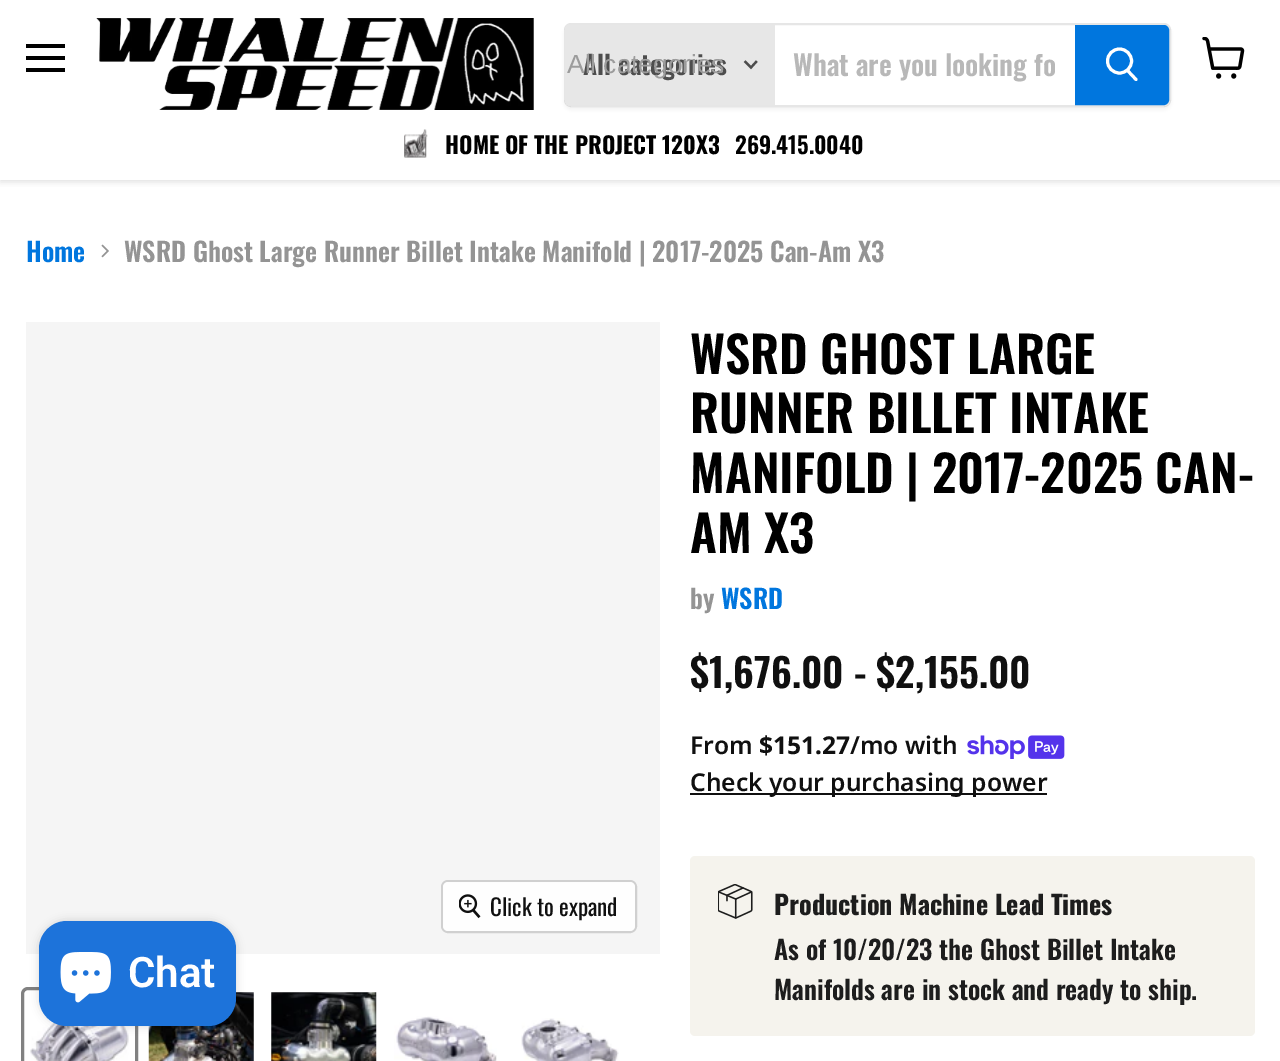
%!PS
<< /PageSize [1280 1061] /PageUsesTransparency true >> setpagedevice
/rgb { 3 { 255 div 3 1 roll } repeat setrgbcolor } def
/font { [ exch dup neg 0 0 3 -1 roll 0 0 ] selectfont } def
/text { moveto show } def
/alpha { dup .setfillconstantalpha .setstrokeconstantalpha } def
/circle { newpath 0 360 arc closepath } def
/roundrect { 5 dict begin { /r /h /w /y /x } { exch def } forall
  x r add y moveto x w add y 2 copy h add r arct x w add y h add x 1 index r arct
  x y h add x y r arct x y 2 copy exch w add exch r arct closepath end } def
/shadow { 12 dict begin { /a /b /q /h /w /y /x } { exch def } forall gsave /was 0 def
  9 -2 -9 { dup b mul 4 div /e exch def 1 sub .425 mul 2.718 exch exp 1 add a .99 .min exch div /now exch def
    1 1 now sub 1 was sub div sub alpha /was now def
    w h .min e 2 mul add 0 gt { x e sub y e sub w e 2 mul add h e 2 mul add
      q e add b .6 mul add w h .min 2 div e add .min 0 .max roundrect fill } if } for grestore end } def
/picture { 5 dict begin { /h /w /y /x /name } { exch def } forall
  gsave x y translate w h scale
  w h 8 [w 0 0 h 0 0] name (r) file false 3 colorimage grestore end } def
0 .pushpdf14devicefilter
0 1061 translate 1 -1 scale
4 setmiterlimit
255 255 255 rgb
0 0 1280 1061 rectfill
gsave
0 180 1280 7 rectclip
128 128 128 rgb
0 2 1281 180 0 3.5 0.25 shadow
grestore
0 0 0 rgb
26 44 39 4 rectfill
26 56 39 4 rectfill
26 68 39 4 rectfill
(img_01.rgb) 96 18 438 92 picture
gsave
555 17 moveto 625 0 rlineto 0 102 rlineto -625 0 rlineto closepath 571 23 moveto 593 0 rlineto 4 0 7 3 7 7 rcurveto 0 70 rlineto 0 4 -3 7 -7 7 rcurveto -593 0 rlineto -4 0 -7 -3 -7 -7 rcurveto 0 -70 rlineto 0 -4 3 -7 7 -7 rcurveto closepath eoclip newpath
128 128 128 rgb
564 26 607 84 7 2.5 0.11 shadow
grestore
0.2 alpha
128 128 128 rgb
2 setlinewidth
565 24 605 82 6 roundrect stroke
1 alpha
231 231 231 rgb
570 25 moveto 205 0 rlineto 0 80 rlineto -205 0 rlineto -3 0 -5 -2 -5 -5 rcurveto 0 -70 rlineto 0 -3 2 -5 5 -5 rcurveto closepath fill
77 77 77 rgb
2.2 setlinewidth
2 setlinecap
751 67.5 moveto 5 -5.5 rlineto 751 67.5 moveto -5.5 -5.5 rlineto stroke
0 118 222 rgb
1076 26 moveto 88 0 rlineto 2 0 4 2 4 4 rcurveto 0 70 rlineto 0 2 -2 4 -4 4 rcurveto -88 0 rlineto closepath gsave fill grestore
2 setlinewidth
0 setlinecap
stroke
255 255 255 rgb
3 setlinewidth
1 setlinecap
1136 79.5 moveto -8 -8.5 rlineto stroke
0 setlinecap
1119.5 61 12 circle stroke
(img_02.rgb) 404 129 24 29 picture
(img_03.rgb) 1202 37 43 42 picture
(img_04.rgb) 101 244 8 14 picture
245 245 245 rgb
26 322 634 632 rectfill
208 208 208 rgb
2 setlinewidth
442 881 194 51 6 roundrect stroke
0.9 alpha
255 255 255 rgb
443 882 192 49 5 roundrect fill
1 alpha
(img_05.rgb) 459 894 22 25 picture
129 129 129 rgb
3 setlinewidth
22.5 988.5 114 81 5.5 roundrect stroke
(img_06.rgb) 30 998 99 63 picture
(img_07.rgb) 148 992 106 69 picture
(img_08.rgb) 271 992 106 69 picture
(img_09.rgb) 394 1016 103 45 picture
(img_10.rgb) 521 1018 98 43 picture
(img_11.rgb) 967 735 98 24 picture
16 16 16 rgb
690 793 357 2 rectfill
245 243 237 rgb
690 856 565 180 5 roundrect fill
(img_12.rgb) 718 884 35 35 picture
0 0 0 rgb
39 921 197 105 28 4.5 0.15 shadow
29 115 218 rgb
39 921 197 105 28 roundrect fill
(img_13.rgb) 60 952 51 51 picture
/Oswald-SemiBold 26.25 font
77 77 77 rgb
(All categories) 583 75 text
/LiberationSans-Regular 26.25 font
156 156 156 rgb
(All categories) 567 73 text
/Oswald-SemiBold 28 font
184 184 184 rgb
(What are you looking fo) 793 76 text
/Oswald-Bold 23 font
0 0 0 rgb
(HOME OF THE PROJECT 120X3) 445 154 text
/Oswald-SemiBold 23 font
(269.415.0040) 735 154 text
/Oswald-SemiBold 26.25 font
0 118 222 rgb
(Home) 26 262 text
148 148 148 rgb
(WSRD Ghost Large Runner Billet Intake Manifold | 2017-2025 Can-Am X3) 124 262 text
/Oswald-Regular 23 font
16 16 16 rgb
(Click to expand) 490 916 text
/Oswald-SemiBold 49.9 font
0 0 0 rgb
(WSRD GHOST LARGE) 690 374 text
(RUNNER BILLET INTAKE) 690 433 text
(MANIFOLD | 2017-2025 CAN-) 690 493 text
(AM X3) 690 553 text
/Oswald-SemiBold 26.25 font
148 148 148 rgb
(by) 690 609 text
0 118 222 rgb
(WSRD) 721 609 text
/Oswald-SemiBold 39.4 font
16 16 16 rgb
($1,676.00 - $2,155.00) 690 688 text
/NotoSans-SemiBold 24.6 font
(From) 690 754 text
/NotoSans-Bold 24.6 font
($151.27) 759 754 text
/NotoSans-SemiBold 24.6 font
(/mo with) 850 754 text
(Check your purchasing power) 690 791 text
/Oswald-Bold 26.25 font
29 29 29 rgb
(Production Machine Lead Times) 774 915 text
/Oswald-SemiBold 26.25 font
(As of 10/20/23 the Ghost Billet Intake) 774 960 text
(Manifolds are in stock and ready to ship.) 774 1000 text
/Roboto-SemiBold 42 font
255 255 255 rgb
(Chat) 128 987 text
.poppdf14devicefilter showpage
